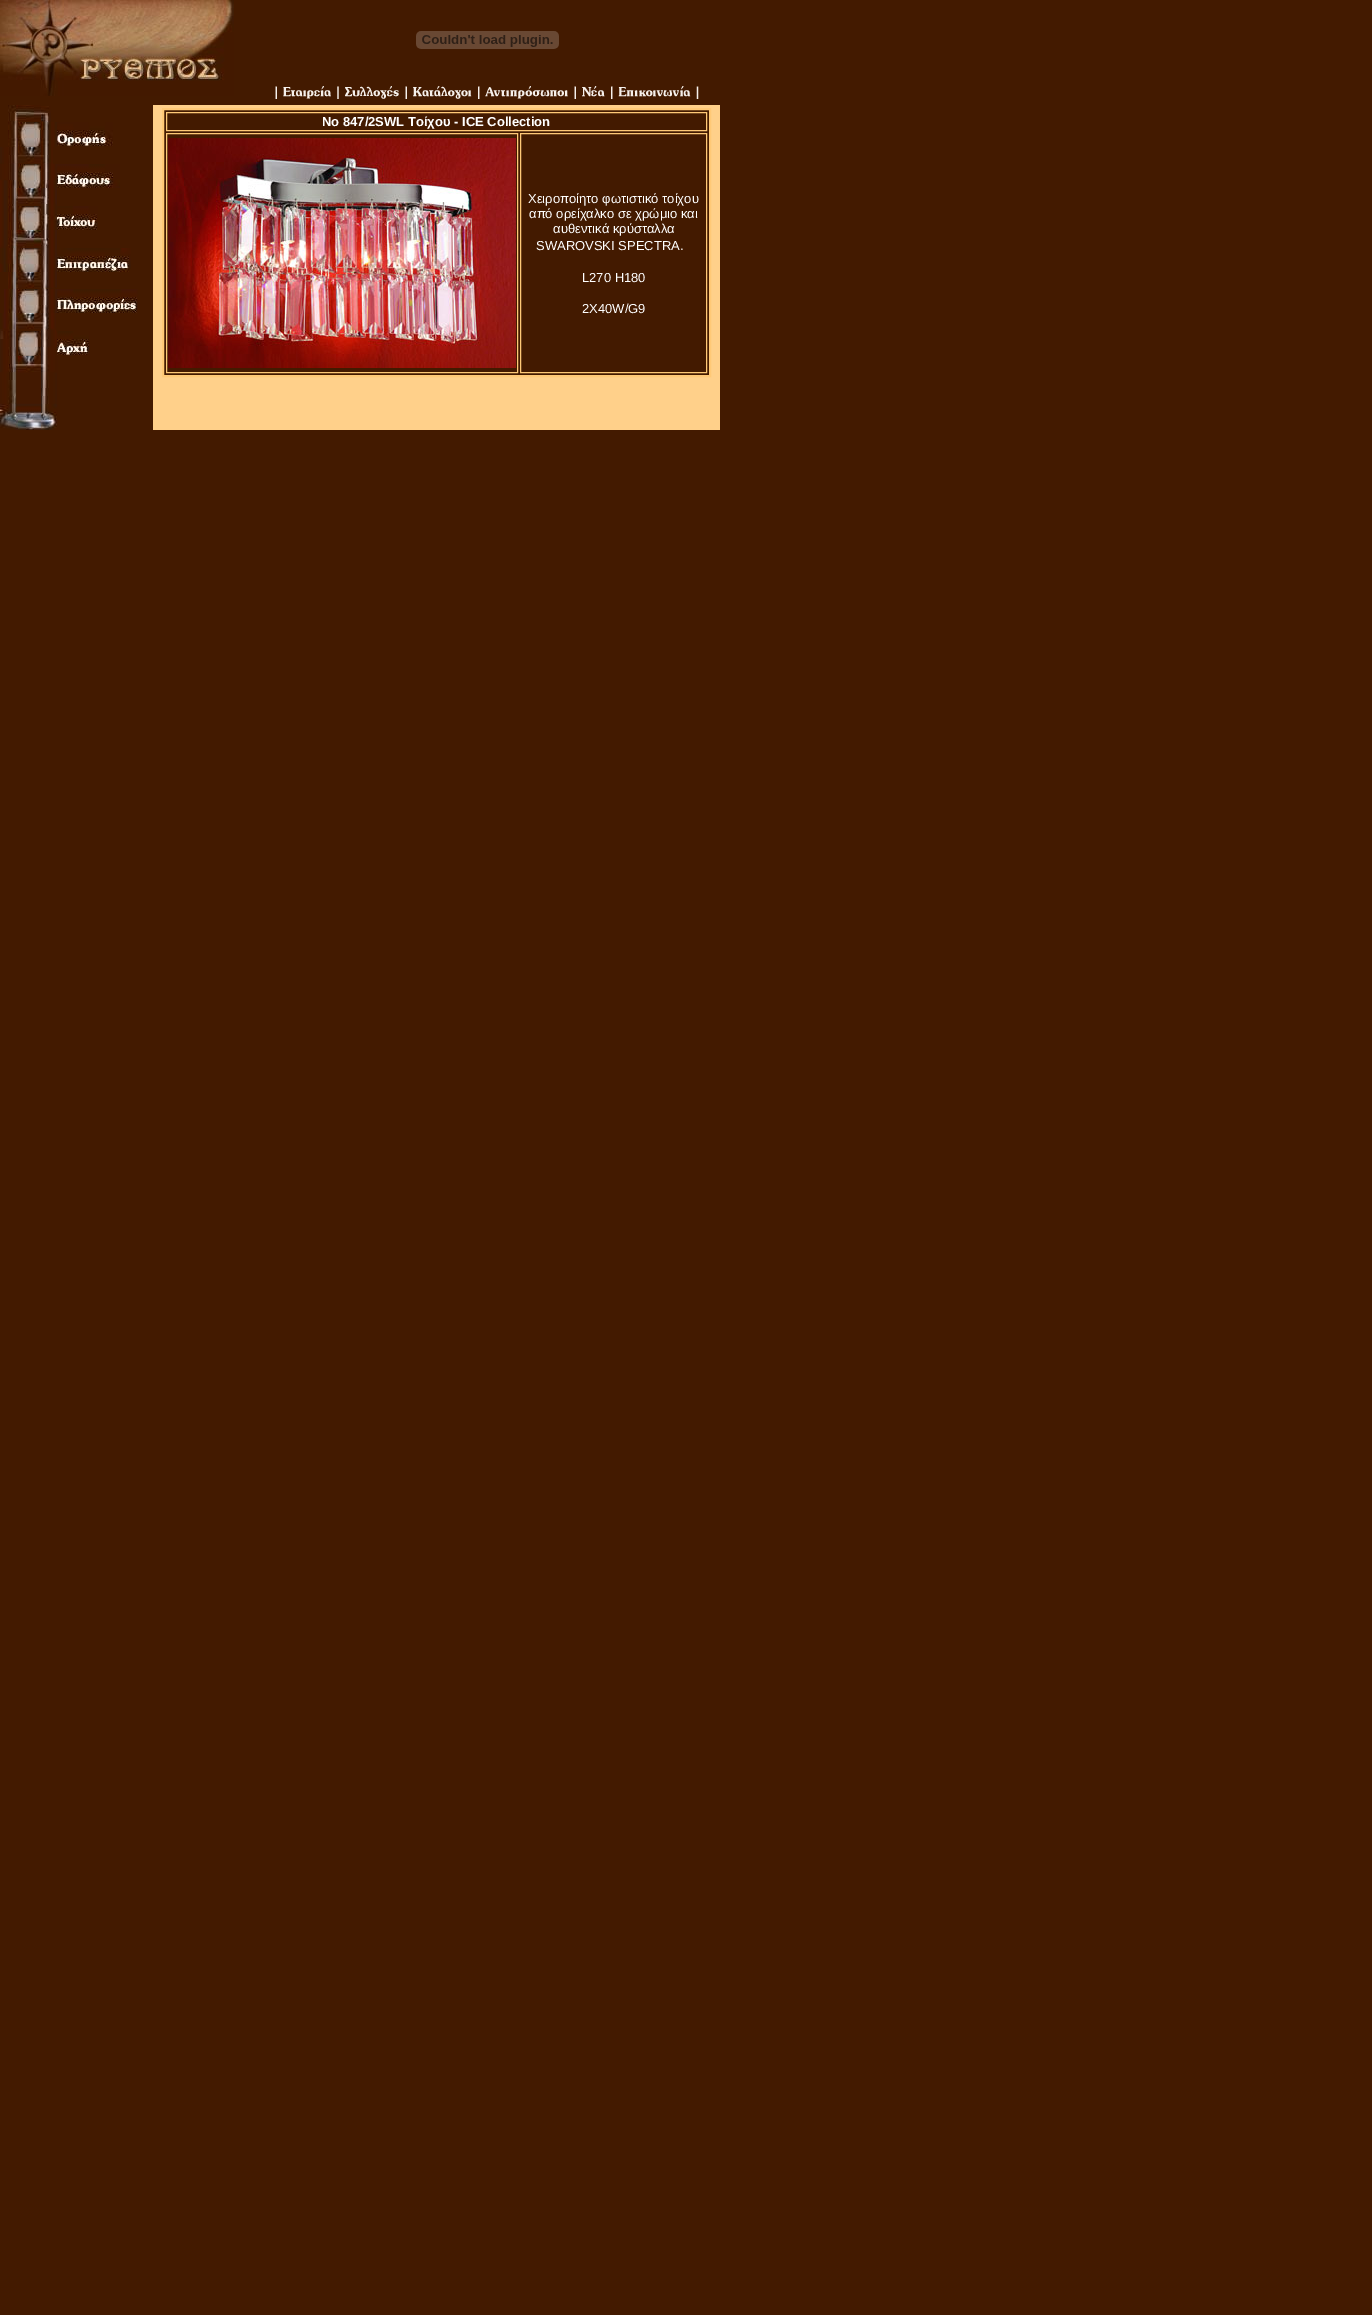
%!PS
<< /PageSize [1372 2315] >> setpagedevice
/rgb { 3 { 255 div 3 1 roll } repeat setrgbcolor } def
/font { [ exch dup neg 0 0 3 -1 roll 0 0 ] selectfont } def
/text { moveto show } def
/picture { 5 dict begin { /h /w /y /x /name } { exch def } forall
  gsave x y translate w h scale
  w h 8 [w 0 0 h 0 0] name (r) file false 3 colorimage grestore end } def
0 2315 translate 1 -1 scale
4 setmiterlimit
67 26 0 rgb
0 0 1372 2315 rectfill
(img_01.rgb) 0 0 234 96 picture
(img_02.rgb) 416 31 143 18 picture
(img_03.rgb) 275 86 424 13 picture
(img_04.rgb) 8 105 10 17 picture
(img_05.rgb) 18 105 23 16 picture
(img_06.rgb) 41 106 10 16 picture
(img_07.rgb) 8 122 10 25 picture
(img_08.rgb) 18 122 23 25 picture
(img_09.rgb) 41 122 72 25 picture
(img_10.rgb) 0 147 18 17 picture
(img_11.rgb) 18 147 23 16 picture
(img_12.rgb) 41 147 12 17 picture
(img_13.rgb) 0 164 18 24 picture
(img_14.rgb) 18 164 23 24 picture
(img_15.rgb) 41 164 79 24 picture
(img_16.rgb) 0 188 18 18 picture
(img_17.rgb) 18 188 23 16 picture
(img_18.rgb) 41 188 16 18 picture
(img_19.rgb) 0 206 17 24 picture
(img_20.rgb) 18 206 23 24 picture
(img_21.rgb) 41 206 57 24 picture
(img_22.rgb) 0 230 18 18 picture
(img_23.rgb) 18 230 23 18 picture
(img_24.rgb) 41 230 16 18 picture
(img_25.rgb) 0 248 17 24 picture
(img_26.rgb) 18 248 23 24 picture
(img_27.rgb) 41 248 90 24 picture
(img_28.rgb) 8 272 10 17 picture
(img_29.rgb) 18 272 23 16 picture
(img_30.rgb) 41 272 16 17 picture
(img_31.rgb) 4 289 14 24 picture
(img_32.rgb) 18 289 23 24 picture
(img_33.rgb) 41 289 97 24 picture
(img_34.rgb) 0 313 18 18 picture
(img_35.rgb) 18 313 23 16 picture
(img_36.rgb) 41 313 15 18 picture
(img_37.rgb) 0 331 17 25 picture
(img_38.rgb) 18 331 23 25 picture
(img_39.rgb) 41 331 49 25 picture
(img_40.rgb) 0 356 18 74 picture
(img_41.rgb) 18 356 23 74 picture
(img_42.rgb) 41 356 17 74 picture
255 208 138 rgb
153 105 567 325 rectfill
67 26 0 rgb
163 109 moveto 547 0 rlineto 0 267 rlineto -547 0 rlineto closepath gsave fill grestore
255 201 119 rgb
2 setlinewidth
stroke
1 setlinewidth
166.5 112.5 540 18 rectstroke
166.5 133.5 351 239 rectstroke
(img_43.rgb) 168 138 348 230 picture
520.5 133.5 186 239 rectstroke
/LiberationSans-Bold 13 font
255 255 255 rgb
(Νο 847/2SWL Τοίχου - ICE Collection) 322 126 text
/LiberationSans-Regular 13 font
(Χειροποίητο φωτιστικό τοίχου) 528 203 text
(από ορείχαλκο σε χρώμιο και) 529 218 text
(αυθεντικά κρύσταλλα) 553 233 text
(SWAROVSKI SPECTRA.) 536 250 text
(L270 H180) 582 282 text
(2Χ40W/G9) 582 313 text
showpage
